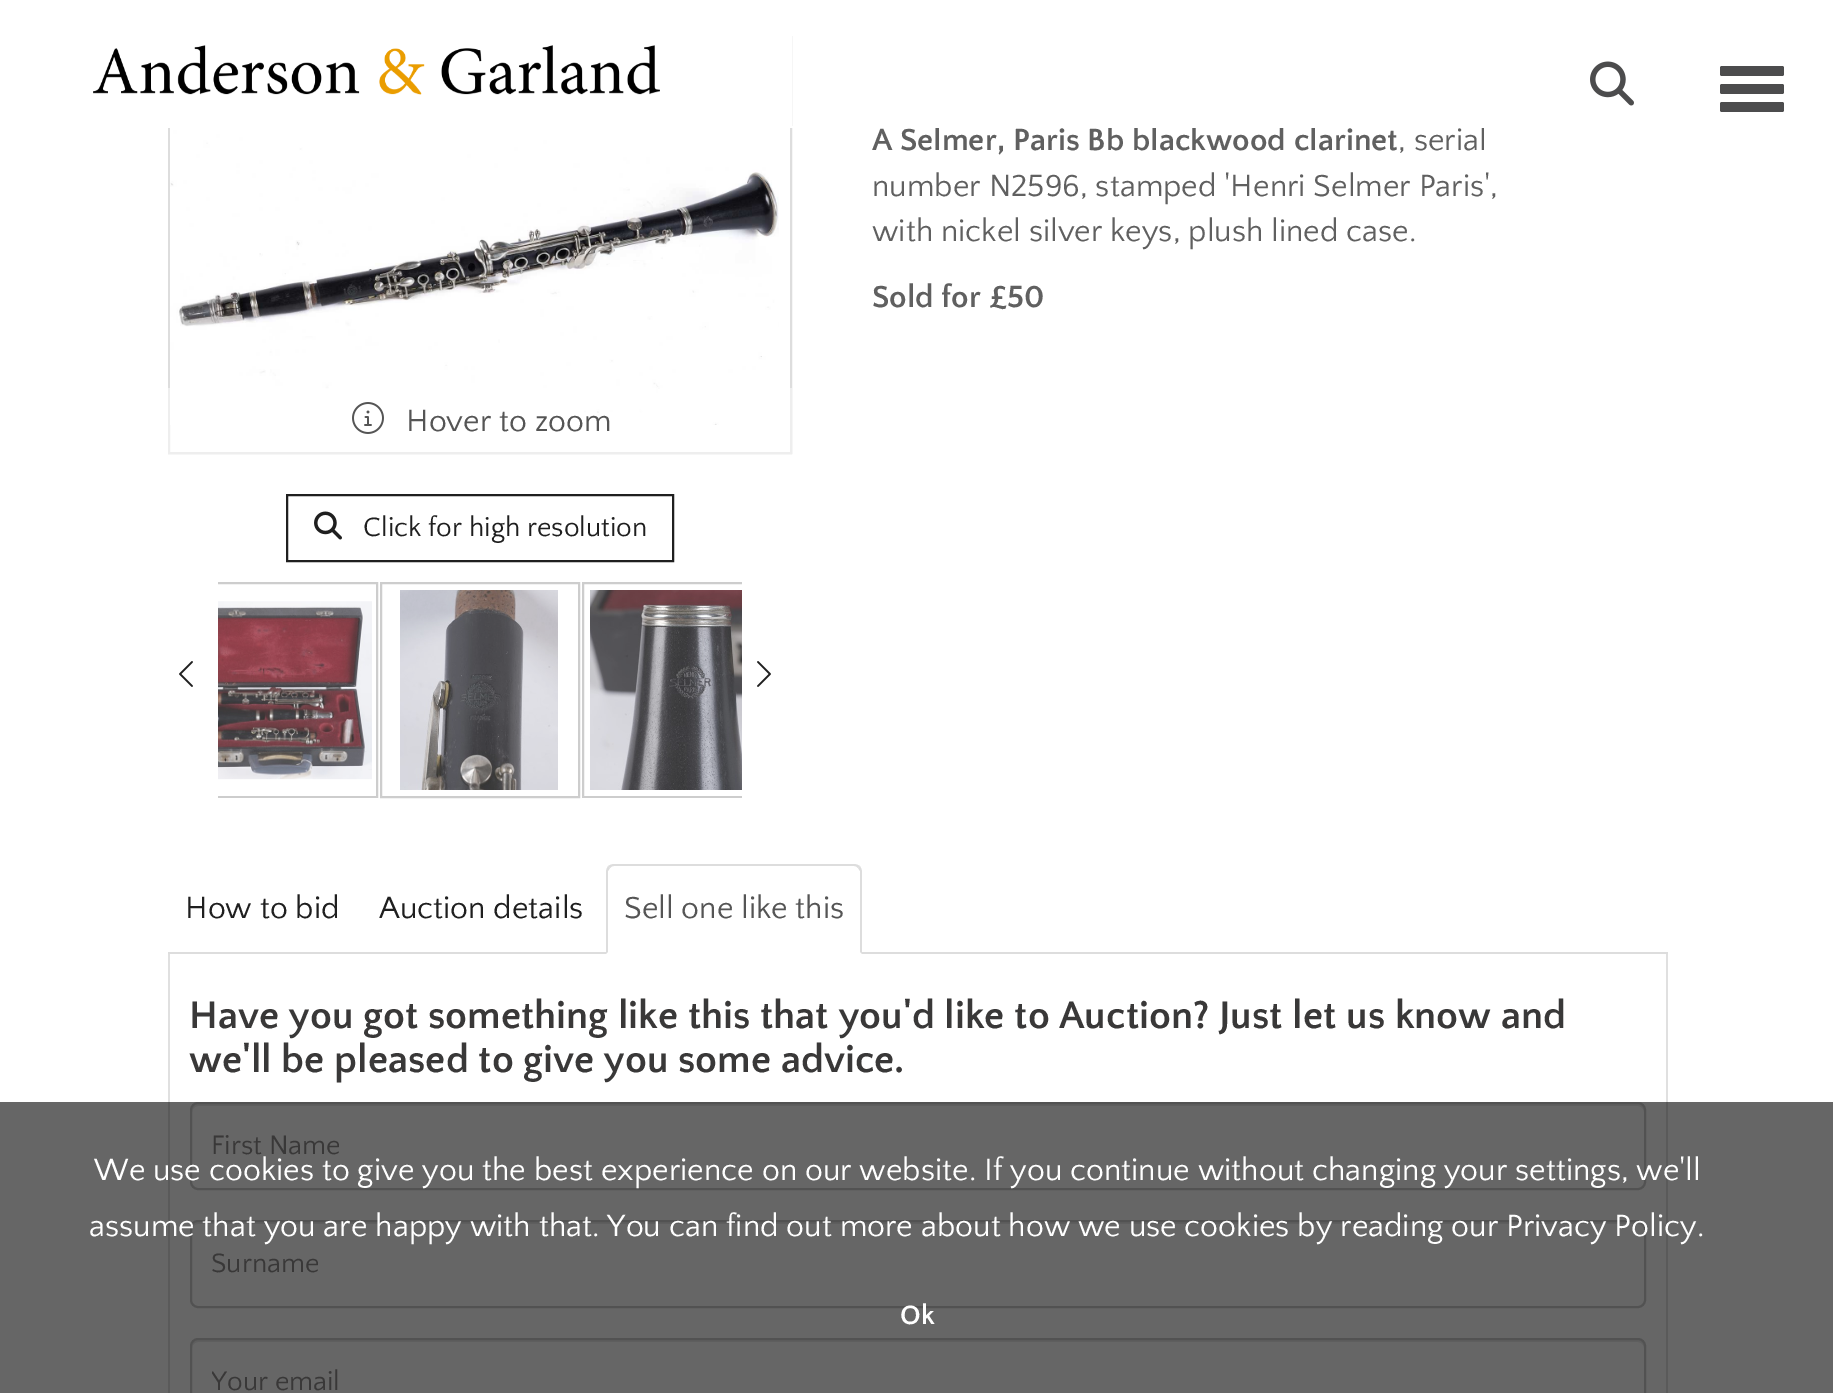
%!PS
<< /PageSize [1833 1393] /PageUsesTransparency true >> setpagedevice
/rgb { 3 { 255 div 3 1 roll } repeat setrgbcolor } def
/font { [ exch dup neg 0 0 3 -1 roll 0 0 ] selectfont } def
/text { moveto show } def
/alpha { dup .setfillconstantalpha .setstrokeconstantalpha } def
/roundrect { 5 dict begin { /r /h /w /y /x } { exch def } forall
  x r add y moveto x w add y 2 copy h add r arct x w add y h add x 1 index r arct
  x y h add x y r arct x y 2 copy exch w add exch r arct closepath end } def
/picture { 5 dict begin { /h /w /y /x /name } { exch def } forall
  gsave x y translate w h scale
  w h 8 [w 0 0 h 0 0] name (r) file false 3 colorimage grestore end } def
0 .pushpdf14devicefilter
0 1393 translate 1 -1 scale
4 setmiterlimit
255 255 255 rgb
0 0 1833 1393 rectfill
102 102 102 rgb
0 1102 1833 291 rectfill
221 221 221 rgb
2 setlinewidth
169 37 622 416 rectstroke
255 255 255 rgb
168 36 624 90 rectfill
(img_01.rgb) 93 45 567 50 picture
(img_02.rgb) 1590 61 44 45 picture
76 76 77 rgb
1720 66 64 10 2 roundrect fill
1720 84 64 10 2 roundrect fill
1720 102 64 10 2 roundrect fill
(img_03.rgb) 170 128 609 297 picture
0.5 alpha
255 255 255 rgb
168 388 624 66 rectfill
1 alpha
(img_04.rgb) 352 402 32 32 picture
31 31 31 rgb
287 495 386 66 rectstroke
(img_05.rgb) 314 511 28 29 picture
(img_09.rgb) 179 661 14 26 picture
gsave
218 582 524 216 rectclip
205 205 205 rgb
179 583 198 214 rectstroke
grestore
(img_06.rgb) 218 601 154 179 picture
205 205 205 rgb
381 583 198 214 rectstroke
(img_07.rgb) 400 590 158 200 picture
(img_10.rgb) 757 661 14 26 picture
gsave
218 582 524 216 rectclip
583 583 198 214 rectstroke
grestore
(img_08.rgb) 590 590 152 200 picture
221 221 221 rgb
168 952 1500 2 rectfill
255 255 255 rgb
614 864 moveto 240 0 rlineto 4.5 0 8 3.5 8 8 rcurveto 0 82 rlineto -256 0 rlineto 0 -82 rlineto 0 -4.5 3.5 -8 8 -8 rcurveto closepath fill
221 221 221 rgb
614 864 moveto -2 0 -4 1 -6 2 rcurveto 2 2 rlineto 1 -1 2 -2 4 -2 rcurveto 240 0 rlineto 2 0 3 1 4 2 rcurveto 2 -2 rlineto -2 -1 -4 -2 -6 -2 rcurveto closepath fill
862 954 moveto 0 -82 rlineto 0 -2 -1 -4 -2 -6 rcurveto -2 2 rlineto 2 3 rlineto 0 81 rlineto closepath fill
606 954 moveto 2 -2 rlineto 0 -81 rlineto 2 -3 rlineto -2 -2 rlineto -1 2 -2 4 -2 6 rcurveto closepath fill
224 224 224 rgb
1666 954 2 148 rectfill
90 90 90 rgb
1666 1102 2 291 rectfill
224 224 224 rgb
168 954 2 148 rectfill
90 90 90 rgb
168 1102 2 291 rectfill
94 94 94 rgb
198 1106 moveto 1440 0 rlineto 3 0 6 3 6 6 rcurveto 0 -4 -1 -8 -6 -8 rcurveto -1440 0 rlineto -5 0 -6 4 -6 8 rcurveto 0 -3 3 -6 6 -6 rcurveto closepath fill
82 82 82 rgb
191 1103 1454 86 7 roundrect stroke
94 94 94 rgb
198 1224 moveto 1440 0 rlineto 3 0 6 3 6 6 rcurveto 0 -4 -1 -8 -6 -8 rcurveto -1440 0 rlineto -5 0 -6 4 -6 8 rcurveto 0 -3 3 -6 6 -6 rcurveto closepath fill
82 82 82 rgb
191 1221 1454 86 7 roundrect stroke
94 94 94 rgb
198 1342 moveto 1440 0 rlineto 3 0 6 3 6 6 rcurveto 0 -4 -1 -8 -6 -8 rcurveto -1440 0 rlineto -5 0 -6 4 -6 8 rcurveto 0 -3 3 -6 6 -6 rcurveto closepath fill
82 82 82 rgb
191 1339 1454 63 7 roundrect stroke
/QuattrocentoSans-Bold 32 font
96 96 96 rgb
(A Selmer, Paris Bb blackwood clarinet) 872 150 text
/QuattrocentoSans-Regular 32 font
(, serial) 1398 150 text
255 255 255 rgb
168 126 1316 2 rectfill
96 96 96 rgb
(number N2596, stamped 'Henri Selmer Paris',) 872 196 text
(with nickel silver keys, plush lined case.) 872 241 text
/QuattrocentoSans-Bold 32 font
(Sold for £50) 872 307 text
/QuattrocentoSans-Regular 32 font
85 85 85 rgb
(Hover to zoom) 406 431 text
/QuattrocentoSans-Regular 28 font
31 31 31 rgb
(Click for high resolution) 363 536 text
/QuattrocentoSans-Regular 32 font
(How to bid) 185 918 text
(Auction details) 379 918 text
85 85 85 rgb
(Sell one like this) 624 918 text
/QuattrocentoSans-Bold 40 font
57 56 56 rgb
(Have you got something like this that you'd like to Auction? Just let us know and) 189 1028 text
(we'll be pleased to give you some advice.) 189 1072 text
/QuattrocentoSans-Regular 28 font
(First Name) 211 1154 text
(Surname) 211 1272 text
gsave
212 1366 1432 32 rectclip
(Your email) 211 1390 text
grestore
/QuattrocentoSans-Regular 32 font
255 255 255 rgb
(We use cookies to give you the best experience on our website. If you continue without changing your settings, we'll) 94 1180 text
(assume that you are happy with that. You can find out more about how we use cookies by reading our Privacy Policy.) 89 1236 text
/QuattrocentoSans-Bold 28 font
(Ok) 900 1324 text
.poppdf14devicefilter showpage
